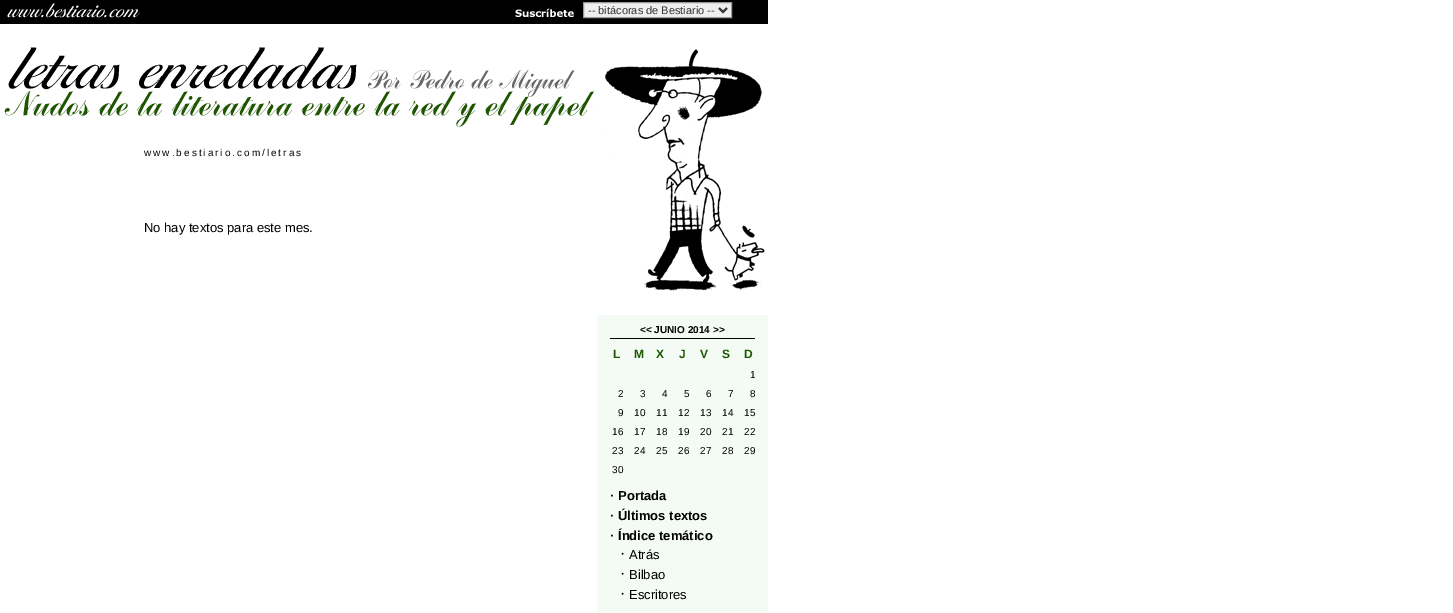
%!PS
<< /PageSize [1453 613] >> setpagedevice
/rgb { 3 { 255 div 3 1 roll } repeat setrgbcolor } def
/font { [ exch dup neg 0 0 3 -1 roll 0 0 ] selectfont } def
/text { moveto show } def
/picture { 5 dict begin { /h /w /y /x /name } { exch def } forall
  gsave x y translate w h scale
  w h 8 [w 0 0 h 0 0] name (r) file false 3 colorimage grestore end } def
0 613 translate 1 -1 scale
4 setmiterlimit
255 255 255 rgb
0 0 1453 613 rectfill
0 0 0 rgb
0 0 768 24 rectfill
(img_01.rgb) 7 3 567 15 picture
239 239 239 rgb
583.5 2.5 moveto 148 0 rlineto 0 15 rlineto -148 0 rlineto closepath gsave fill grestore
153 153 153 rgb
stroke
51 51 51 rgb
2 setlinewidth
719 8 moveto 4 4 rlineto 4 -4 rlineto stroke
(img_02.rgb) 4 47 591 80 picture
(img_03.rgb) 598 49 167 242 picture
244 251 244 rgb
597 315 171 298 rectfill
0 0 0 rgb
610 338 145 1 rectfill
/LiberationSans-Regular 11 font
51 51 51 rgb
(-- bitácoras de Bestiario --) 588 14 text
/LiberationSans-Regular 10 font
0 0 0 rgb
144 156 moveto 2 0 (www.bestiario.com/letras) ashow
/LiberationSans-Regular 13 font
(No hay textos para este mes.) 144 232 text
/LiberationSans-Bold 10 font
(<< JUNIO 2014 >>) 640 333 text
/LiberationSans-Bold 12 font
27 86 0 rgb
(L) 613 358 text
(M) 634 358 text
(X) 656 358 text
(J) 679 358 text
(V) 700 358 text
(S) 722 358 text
(D) 744 358 text
/LiberationSans-Regular 10 font
0 0 0 rgb
(1) 750 378 text
(2) 618 397 text
(3) 640 397 text
(4) 662 397 text
(5) 684 397 text
(6) 706 397 text
(7) 728 397 text
(8) 750 397 text
(9) 618 416 text
(10) 634 416 text
(11) 656 416 text
(12) 678 416 text
(13) 700 416 text
(14) 722 416 text
(15) 744 416 text
(16) 612 435 text
(17) 634 435 text
(18) 656 435 text
(19) 678 435 text
(20) 700 435 text
(21) 722 435 text
(22) 744 435 text
(23) 612 454 text
(24) 634 454 text
(25) 656 454 text
(26) 678 454 text
(27) 700 454 text
(28) 722 454 text
(29) 744 454 text
(30) 612 473 text
/LiberationSans-Bold 13 font
(· Portada) 610 500 text
(· Últimos textos) 610 520 text
(· Índice temático) 610 540 text
/LiberationSerif-Regular 16 font
(·) 620 559 text
/LiberationSans-Regular 13 font
(Atrás) 629 559 text
/LiberationSerif-Regular 16 font
(·) 620 579 text
/LiberationSans-Regular 13 font
(Bilbao) 629 579 text
/LiberationSerif-Regular 16 font
(·) 620 599 text
/LiberationSans-Regular 13 font
(Escritores) 629 599 text
showpage
